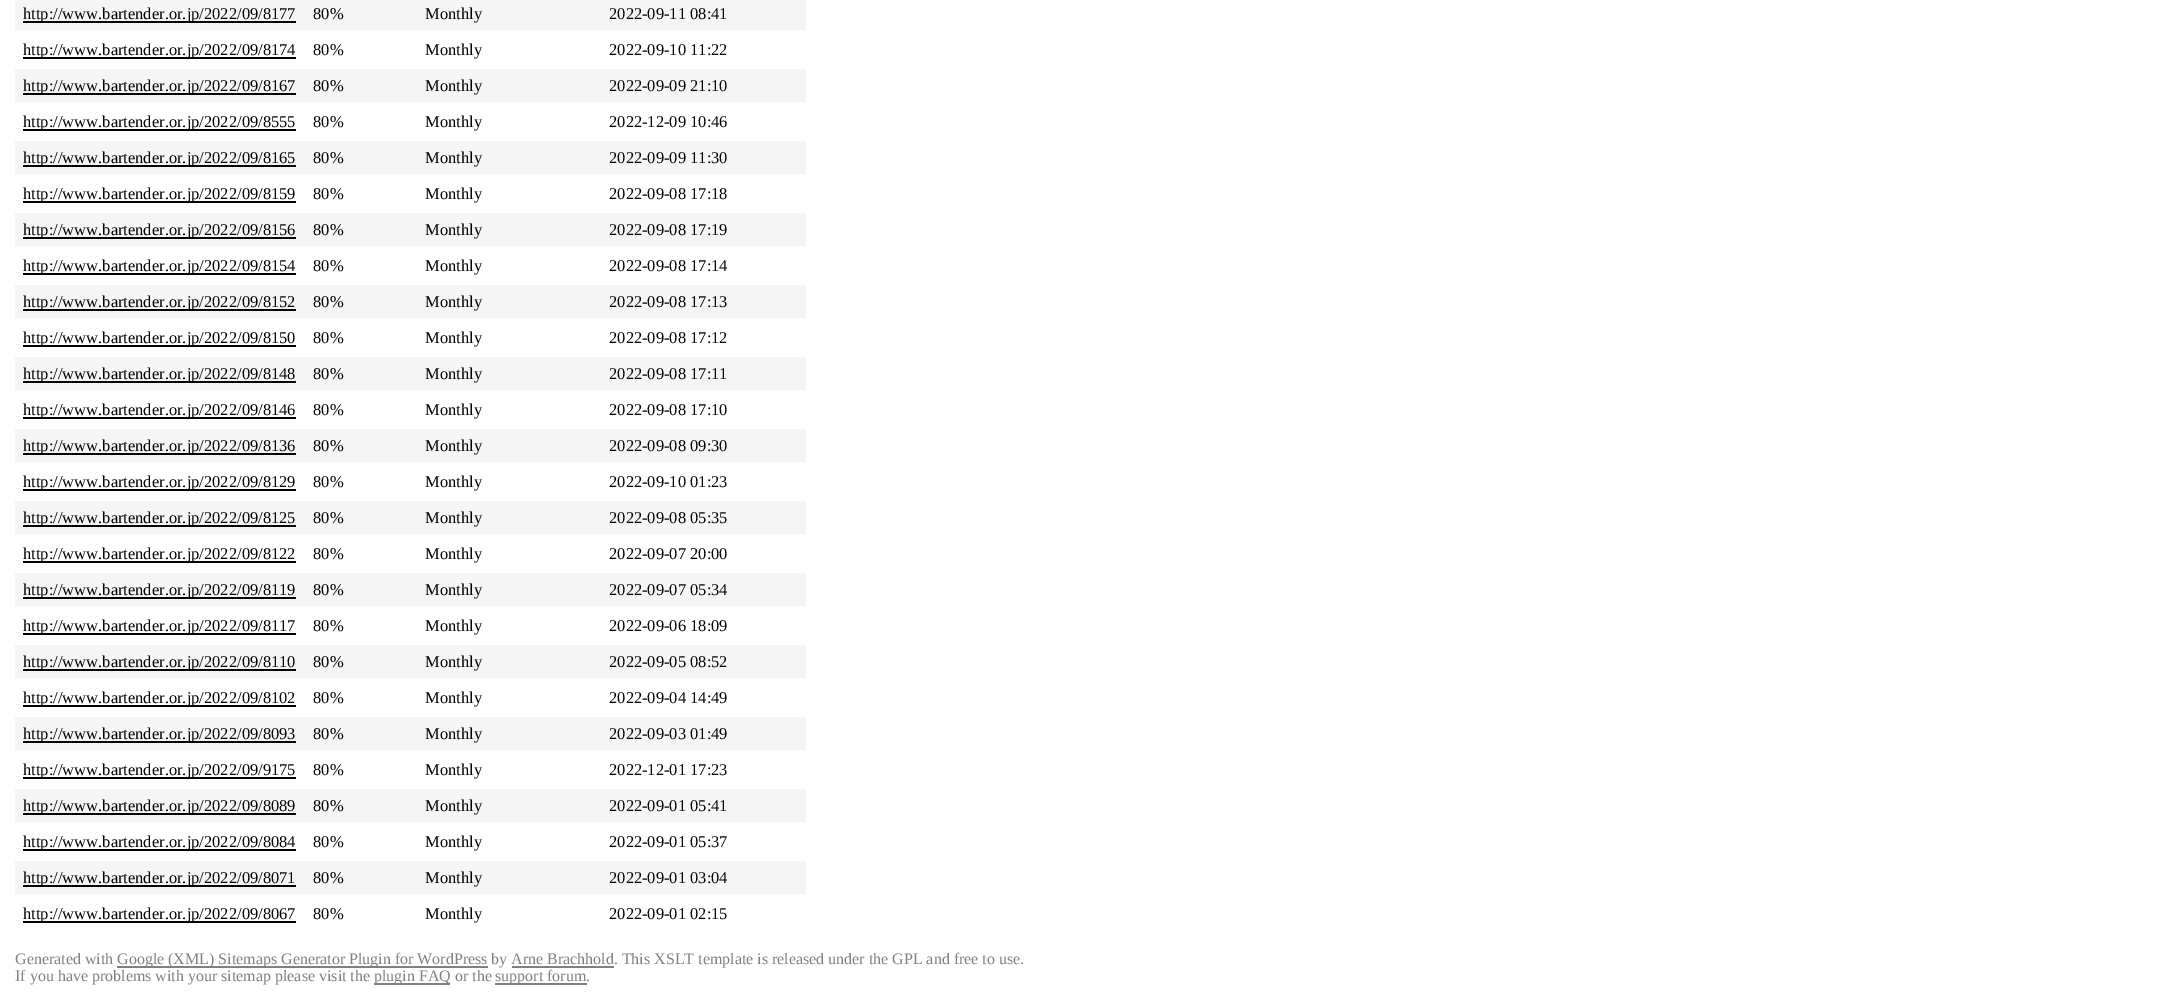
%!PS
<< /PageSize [2170 998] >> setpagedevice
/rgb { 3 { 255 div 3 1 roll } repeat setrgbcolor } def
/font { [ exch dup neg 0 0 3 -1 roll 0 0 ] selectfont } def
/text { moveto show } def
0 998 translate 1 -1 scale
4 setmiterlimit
255 255 255 rgb
0 0 2170 998 rectfill
245 245 245 rgb
15 0 791 30 rectfill
0 0 0 rgb
23 21 273 2 rectfill
23 57 273 2 rectfill
245 245 245 rgb
15 69 791 33 rectfill
0 0 0 rgb
23 93 273 2 rectfill
23 129 273 2 rectfill
245 245 245 rgb
15 141 791 33 rectfill
0 0 0 rgb
23 165 273 2 rectfill
23 201 273 2 rectfill
245 245 245 rgb
15 213 791 33 rectfill
0 0 0 rgb
23 237 273 2 rectfill
23 273 273 2 rectfill
245 245 245 rgb
15 285 791 33 rectfill
0 0 0 rgb
23 309 273 2 rectfill
23 345 273 2 rectfill
245 245 245 rgb
15 357 791 33 rectfill
0 0 0 rgb
23 381 273 2 rectfill
23 417 273 2 rectfill
245 245 245 rgb
15 429 791 33 rectfill
0 0 0 rgb
23 453 273 2 rectfill
23 489 273 2 rectfill
245 245 245 rgb
15 501 791 33 rectfill
0 0 0 rgb
23 525 273 2 rectfill
23 561 273 2 rectfill
245 245 245 rgb
15 573 791 33 rectfill
0 0 0 rgb
23 597 273 2 rectfill
23 633 273 2 rectfill
245 245 245 rgb
15 645 791 33 rectfill
0 0 0 rgb
23 669 273 2 rectfill
23 705 273 2 rectfill
245 245 245 rgb
15 717 791 33 rectfill
0 0 0 rgb
23 741 273 2 rectfill
23 777 273 2 rectfill
245 245 245 rgb
15 789 791 33 rectfill
0 0 0 rgb
23 813 273 2 rectfill
23 849 273 2 rectfill
245 245 245 rgb
15 861 791 33 rectfill
0 0 0 rgb
23 885 273 2 rectfill
23 921 273 2 rectfill
128 128 128 rgb
117 966 371 2 rectfill
512 966 102 2 rectfill
374 983 76 2 rectfill
495 983 92 2 rectfill
/LiberationSerif-Regular 16.5 font
0 0 0 rgb
(http://www.bartender.or.jp/2022/09/8177) 23 19 text
(80%) 313 19 text
(Monthly) 425 19 text
(2022-09-11 08:41) 609 19 text
(http://www.bartender.or.jp/2022/09/8174) 23 55 text
(80%) 313 55 text
(Monthly) 425 55 text
(2022-09-10 11:22) 609 55 text
(http://www.bartender.or.jp/2022/09/8167) 23 91 text
(80%) 313 91 text
(Monthly) 425 91 text
(2022-09-09 21:10) 609 91 text
(http://www.bartender.or.jp/2022/09/8555) 23 127 text
(80%) 313 127 text
(Monthly) 425 127 text
(2022-12-09 10:46) 609 127 text
(http://www.bartender.or.jp/2022/09/8165) 23 163 text
(80%) 313 163 text
(Monthly) 425 163 text
(2022-09-09 11:30) 609 163 text
(http://www.bartender.or.jp/2022/09/8159) 23 199 text
(80%) 313 199 text
(Monthly) 425 199 text
(2022-09-08 17:18) 609 199 text
(http://www.bartender.or.jp/2022/09/8156) 23 235 text
(80%) 313 235 text
(Monthly) 425 235 text
(2022-09-08 17:19) 609 235 text
(http://www.bartender.or.jp/2022/09/8154) 23 271 text
(80%) 313 271 text
(Monthly) 425 271 text
(2022-09-08 17:14) 609 271 text
(http://www.bartender.or.jp/2022/09/8152) 23 307 text
(80%) 313 307 text
(Monthly) 425 307 text
(2022-09-08 17:13) 609 307 text
(http://www.bartender.or.jp/2022/09/8150) 23 343 text
(80%) 313 343 text
(Monthly) 425 343 text
(2022-09-08 17:12) 609 343 text
(http://www.bartender.or.jp/2022/09/8148) 23 379 text
(80%) 313 379 text
(Monthly) 425 379 text
(2022-09-08 17:11) 609 379 text
(http://www.bartender.or.jp/2022/09/8146) 23 415 text
(80%) 313 415 text
(Monthly) 425 415 text
(2022-09-08 17:10) 609 415 text
(http://www.bartender.or.jp/2022/09/8136) 23 451 text
(80%) 313 451 text
(Monthly) 425 451 text
(2022-09-08 09:30) 609 451 text
(http://www.bartender.or.jp/2022/09/8129) 23 487 text
(80%) 313 487 text
(Monthly) 425 487 text
(2022-09-10 01:23) 609 487 text
(http://www.bartender.or.jp/2022/09/8125) 23 523 text
(80%) 313 523 text
(Monthly) 425 523 text
(2022-09-08 05:35) 609 523 text
(http://www.bartender.or.jp/2022/09/8122) 23 559 text
(80%) 313 559 text
(Monthly) 425 559 text
(2022-09-07 20:00) 609 559 text
(http://www.bartender.or.jp/2022/09/8119) 23 595 text
(80%) 313 595 text
(Monthly) 425 595 text
(2022-09-07 05:34) 609 595 text
(http://www.bartender.or.jp/2022/09/8117) 23 631 text
(80%) 313 631 text
(Monthly) 425 631 text
(2022-09-06 18:09) 609 631 text
(http://www.bartender.or.jp/2022/09/8110) 23 667 text
(80%) 313 667 text
(Monthly) 425 667 text
(2022-09-05 08:52) 609 667 text
(http://www.bartender.or.jp/2022/09/8102) 23 703 text
(80%) 313 703 text
(Monthly) 425 703 text
(2022-09-04 14:49) 609 703 text
(http://www.bartender.or.jp/2022/09/8093) 23 739 text
(80%) 313 739 text
(Monthly) 425 739 text
(2022-09-03 01:49) 609 739 text
(http://www.bartender.or.jp/2022/09/9175) 23 775 text
(80%) 313 775 text
(Monthly) 425 775 text
(2022-12-01 17:23) 609 775 text
(http://www.bartender.or.jp/2022/09/8089) 23 811 text
(80%) 313 811 text
(Monthly) 425 811 text
(2022-09-01 05:41) 609 811 text
(http://www.bartender.or.jp/2022/09/8084) 23 847 text
(80%) 313 847 text
(Monthly) 425 847 text
(2022-09-01 05:37) 609 847 text
(http://www.bartender.or.jp/2022/09/8071) 23 883 text
(80%) 313 883 text
(Monthly) 425 883 text
(2022-09-01 03:04) 609 883 text
(http://www.bartender.or.jp/2022/09/8067) 23 919 text
(80%) 313 919 text
(Monthly) 425 919 text
(2022-09-01 02:15) 609 919 text
/LiberationSerif-Regular 16 font
128 128 128 rgb
(Generated with) 15 964 text
(Google \(XML\) Sitemaps Generator Plugin for WordPress) 117 964 text
(by Arne Brachhold. This XSLT template is released under the GPL and free to use.) 491 964 text
(If you have problems with your sitemap please visit the) 15 981 text
(plugin FAQ or the) 374 981 text
(support forum.) 495 981 text
showpage
